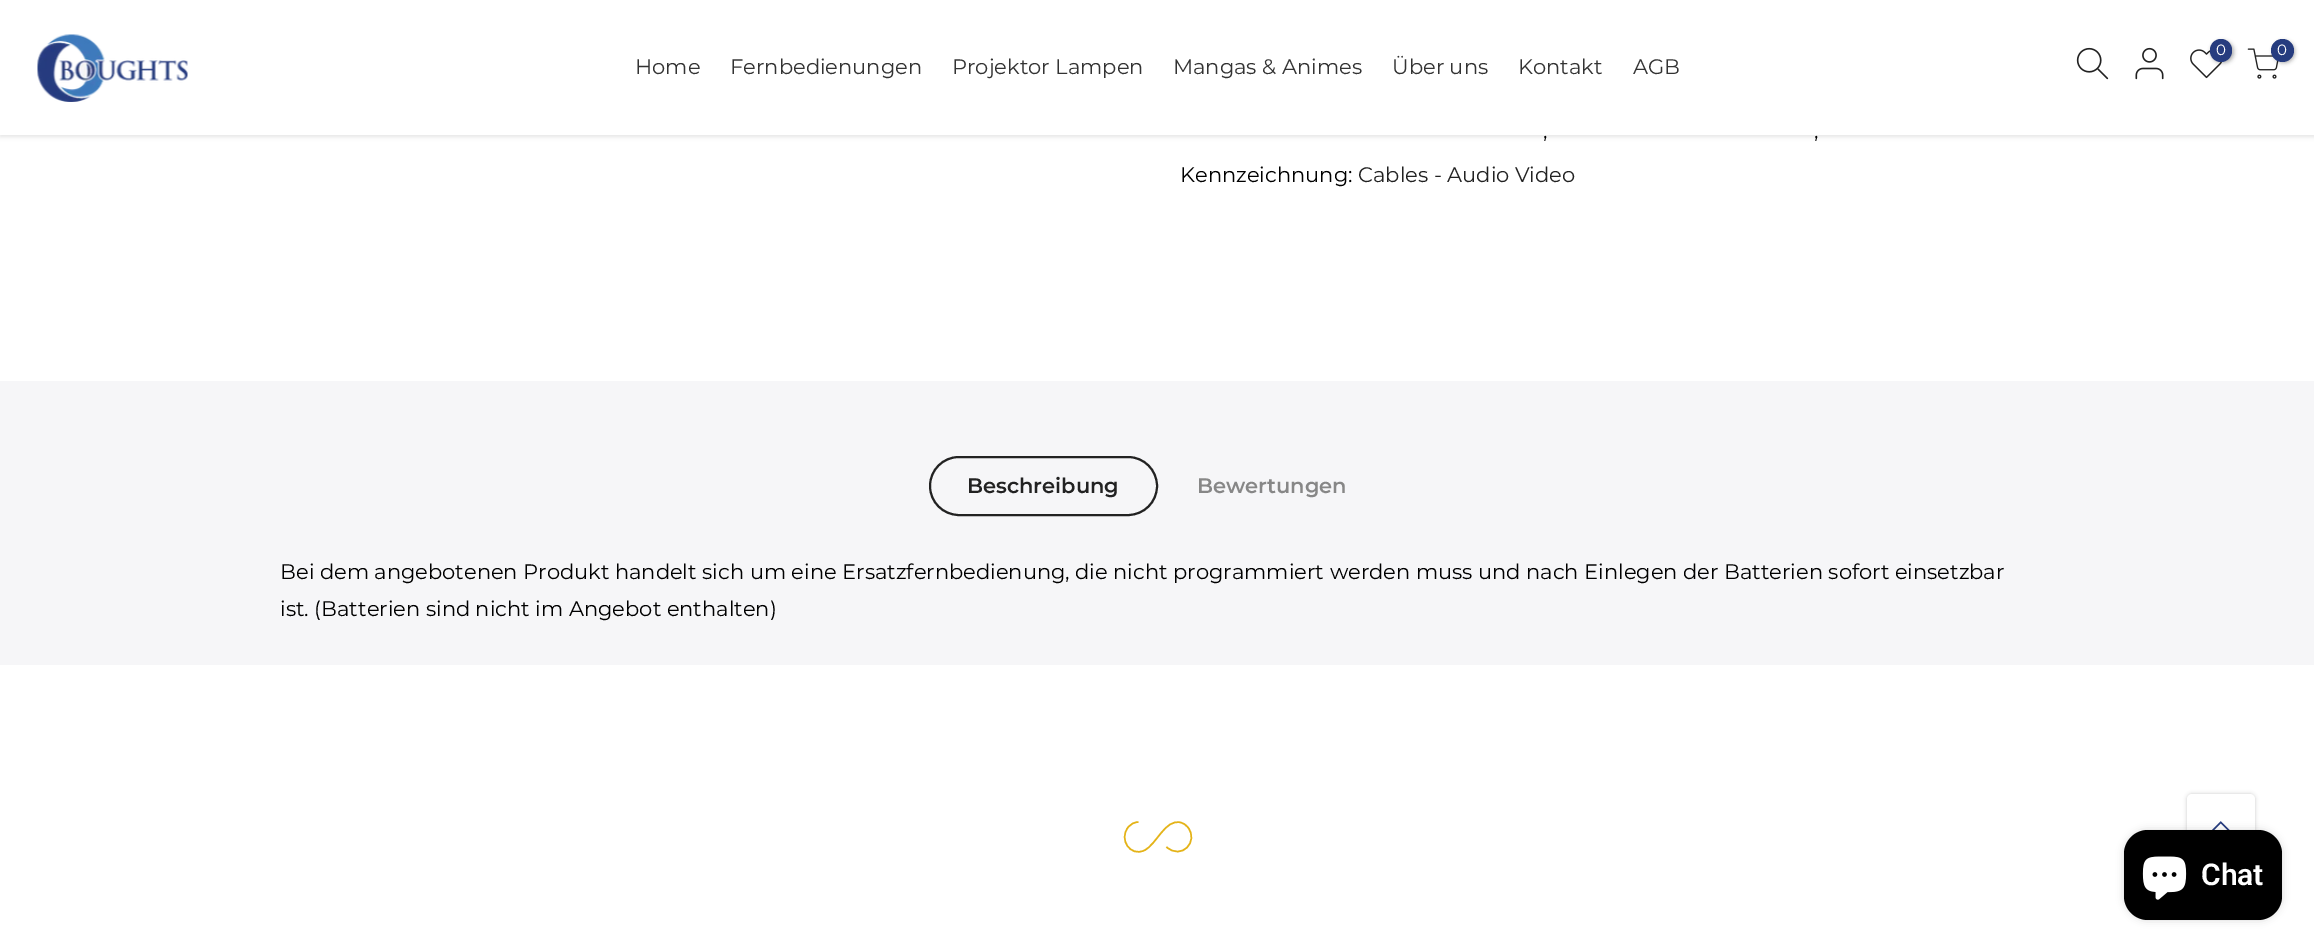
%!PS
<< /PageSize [2314 951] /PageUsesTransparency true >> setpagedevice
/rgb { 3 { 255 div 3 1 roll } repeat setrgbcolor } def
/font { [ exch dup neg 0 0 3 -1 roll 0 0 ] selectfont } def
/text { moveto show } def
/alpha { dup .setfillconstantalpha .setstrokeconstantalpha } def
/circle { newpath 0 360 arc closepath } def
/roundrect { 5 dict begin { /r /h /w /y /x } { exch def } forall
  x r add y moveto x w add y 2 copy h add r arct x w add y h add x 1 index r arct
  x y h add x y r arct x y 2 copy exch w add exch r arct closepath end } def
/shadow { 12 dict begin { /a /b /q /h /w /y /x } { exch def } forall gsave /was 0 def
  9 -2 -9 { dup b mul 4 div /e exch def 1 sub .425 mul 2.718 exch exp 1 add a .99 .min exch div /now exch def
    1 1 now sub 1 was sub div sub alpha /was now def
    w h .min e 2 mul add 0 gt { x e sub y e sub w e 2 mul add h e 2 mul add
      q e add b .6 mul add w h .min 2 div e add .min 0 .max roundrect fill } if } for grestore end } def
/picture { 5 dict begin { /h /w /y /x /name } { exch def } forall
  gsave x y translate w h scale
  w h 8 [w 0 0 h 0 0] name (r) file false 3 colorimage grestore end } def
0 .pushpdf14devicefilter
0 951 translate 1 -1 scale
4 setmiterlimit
255 255 255 rgb
0 0 2314 951 rectfill
0 0 0 rgb
0 2 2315 135 0 2 0.1 shadow
255 255 255 rgb
0 0 2314 135 rectfill
(img_01.rgb) 37 34 151 68 picture
(img_02.rgb) 2076 47 33 33 picture
(img_03.rgb) 2135 47 29 33 picture
(img_04.rgb) 2190 49 33 30 picture
0 0 0 rgb
2211 41 23 22 11 2 0.3 shadow
38 60 127 rgb
2210 39 22 23 11 roundrect fill
(img_05.rgb) 2247 48 32 31 picture
0 0 0 rgb
2273 41 22 22 11 2 0.3 shadow
38 60 127 rgb
2282.5 50.5 11.5 circle fill
246 246 248 rgb
0 381 2314 284 rectfill
34 34 34 rgb
2 setlinewidth
930 457 227 58 29 roundrect stroke
228 179 24 rgb
1.5 setlinewidth
1138.5 822 moveto -4 0 -8 2 -10.5 5.5 rcurveto -9.5 12 2.5 29.5 16 23 rcurveto 12.5 -5.5 21 -32 36.5 -28 rcurveto 3 0.5 5.5 2.5 7.5 5 rcurveto 11 14 -6.5 33 -21.5 19.5 rcurveto stroke
0 0 0 rgb
2187 794 68 67 5 2 0.2 shadow
255 255 255 rgb
2187 794 68 67 5 roundrect fill
(img_06.rgb) 2212 821 18 9 picture
0 0 0 rgb
2124 830 158 90 24 4 0.15 shadow
2124 830 158 90 24 roundrect fill
(img_07.rgb) 2142 856 45 44 picture
/Montserrat-Regular 15 font
255 255 255 rgb
(0) 2216 55 text
(0) 2277 55 text
/Montserrat-Regular 21 font
51 51 51 rgb
(Home) 635 74 text
(Fernbedienungen) 730 74 text
(Projektor Lampen) 952 74 text
(Mangas & Animes) 1173 74 text
(Über uns) 1392 74 text
(Kontakt) 1518 74 text
(AGB) 1633 74 text
0 0 0 rgb
(,) 1543 138 text
(,) 1814 138 text
(Kennzeichnung:) 1180 182 text
34 34 34 rgb
(Cables - Audio Video) 1358 182 text
/Montserrat-SemiBold 21 font
(Beschreibung) 967 493 text
135 135 135 rgb
(Bewertungen) 1197 493 text
/Montserrat-Regular 21 font
0 0 0 rgb
(Bei dem angebotenen Produkt handelt sich um eine Ersatzfernbedienung, die nicht programmiert werden muss und nach Einlegen der Batterien sofort einsetzbar) 280 579 text
(ist. \(Batterien sind nicht im Angebot enthalten\)) 280 616 text
/Roboto-SemiBold 30 font
255 255 255 rgb
(Chat) 2201 885 text
.poppdf14devicefilter showpage
